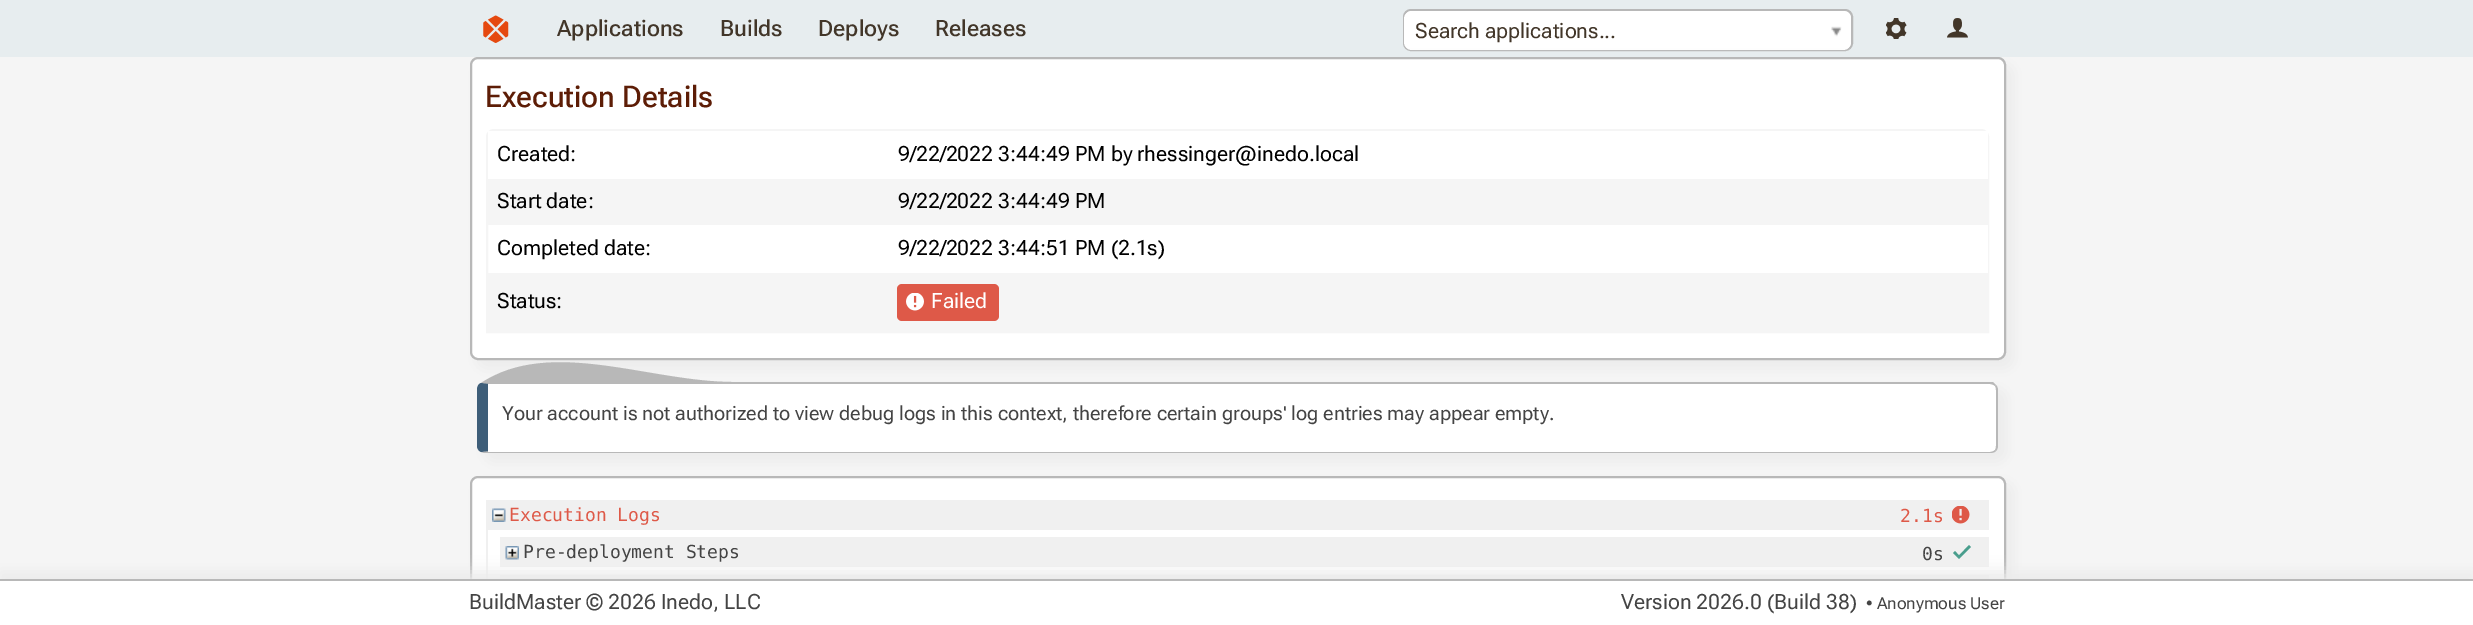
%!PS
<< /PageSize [2473 625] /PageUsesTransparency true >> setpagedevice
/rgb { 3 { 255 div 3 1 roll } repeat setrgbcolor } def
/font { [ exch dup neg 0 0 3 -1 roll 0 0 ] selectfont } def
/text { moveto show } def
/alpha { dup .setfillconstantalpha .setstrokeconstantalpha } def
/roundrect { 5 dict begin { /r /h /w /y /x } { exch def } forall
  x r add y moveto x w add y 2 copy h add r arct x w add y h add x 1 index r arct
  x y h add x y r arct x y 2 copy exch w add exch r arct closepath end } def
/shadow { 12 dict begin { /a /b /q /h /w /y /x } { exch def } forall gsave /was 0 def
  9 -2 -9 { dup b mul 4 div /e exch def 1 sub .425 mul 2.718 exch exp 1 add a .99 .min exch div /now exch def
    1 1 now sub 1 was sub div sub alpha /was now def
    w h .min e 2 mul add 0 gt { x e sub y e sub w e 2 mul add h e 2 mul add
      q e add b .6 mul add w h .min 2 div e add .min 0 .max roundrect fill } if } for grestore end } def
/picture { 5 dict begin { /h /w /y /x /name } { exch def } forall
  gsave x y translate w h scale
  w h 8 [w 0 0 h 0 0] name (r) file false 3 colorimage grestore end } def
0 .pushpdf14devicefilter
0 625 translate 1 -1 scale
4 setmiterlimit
245 245 245 rgb
0 0 2473 625 rectfill
231 237 239 rgb
0 0 2473 57 rectfill
(img_01.rgb) 483 15 26 28 picture
255 255 255 rgb
1404 10 448 40 7 roundrect gsave fill grestore
184 184 184 rgb
2 setlinewidth
stroke
255 255 255 rgb
1404 11 447 39 8 roundrect fill
(img_02.rgb) 1831 26 11 11 picture
(img_03.rgb) 1886 18 21 21 picture
(img_04.rgb) 1947 18 21 20 picture
235 235 235 rgb
477 65 1536 303 8 7.5 1 shadow
255 255 255 rgb
471 58 1534 301 7 roundrect gsave fill grestore
184 184 184 rgb
stroke
245 245 245 rgb
494 130 moveto 1487 0 rlineto 4 0 7 3 7 7 rcurveto 0 195 rlineto -1501 0 rlineto 0 -195 rlineto 0 -4 3 -7 7 -7 rcurveto closepath stroke
255 255 255 rgb
488 131 1500 48 rectfill
245 245 245 rgb
488 179 1499 46 rectfill
255 255 255 rgb
1987 225 1 48 rectfill
245 245 245 rgb
488 273 1499 58 rectfill
222 89 72 rgb
897 284 102 37 5 roundrect fill
(img_05.rgb) 906 293 18 18 picture
235 235 235 rgb
485 390 1521 71 8 7.5 1 shadow
255 255 255 rgb
488 384 moveto 1502 0 rlineto 4 0 6 3 6 6 rcurveto 0 56 rlineto 0 3 -2 6 -6 6 rcurveto -1502 0 rlineto closepath fill
184 184 184 rgb
488 384 moveto -7 -1 rlineto 70 -46 168 -1 252 -1 rcurveto 1260 0 rlineto 3 3 rlineto -1 1 rlineto -1 -1 -3 -2 -5 -2 rcurveto closepath fill
1998 446 moveto 0 -56 rlineto 0 -2 -1 -4 -2 -5 rcurveto -1 1 rlineto 1 1 1 3 1 4 rcurveto 0 56 rlineto 0 1 0 3 -1 4 rcurveto 1 1 rlineto 1 -1 2 -3 2 -5 rcurveto closepath fill
484 453 moveto 1506 0 rlineto 3 0 5 -1 6 -2 rcurveto -1 -1 rlineto -1 1 -3 2 -5 2 rcurveto -1502 0 rlineto 0 -1 rlineto -7 1 rlineto closepath fill
62 94 121 rgb
477 390 moveto 0 56 rlineto 0 3 2 5 4 6 rcurveto 7 -1 rlineto 0 -67 rlineto -7 -1 rlineto -3 1 -4 4 -4 7 rcurveto closepath fill
235 235 235 rgb
477 483 1536 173 8 7.5 1 shadow
255 255 255 rgb
471 477 1534 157 7 roundrect gsave fill grestore
184 184 184 rgb
stroke
240 240 240 rgb
486 500 2 79 rectfill
488 500 1501 30 rectfill
(img_06.rgb) 492 508 14 14 picture
(img_07.rgb) 1952 506 18 18 picture
500 537 1489 30 rectfill
(img_08.rgb) 505 546 14 14 picture
73 158 141 rgb
1971 547 moveto -12 12 rlineto -6 -6 rlineto 2 -2 rlineto 4 4.5 rlineto 10 -10.5 rlineto closepath fill
240 240 240 rgb
500 575 1489 4 rectfill
235 235 235 rgb
0 572 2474 46 0 7.5 1 shadow
255 255 255 rgb
0 581 2473 44 rectfill
184 184 184 rgb
0 579 2473 2 rectfill
/RobotoFlex-Medium 22.5 font
66 54 41 rgb
(Applications) 557 36 text
(Builds) 720 36 text
(Deploys) 818 36 text
(Releases) 935 36 text
/RobotoFlex-Regular 21 font
(Search applications...) 1415 38 text
/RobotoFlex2-Medium 30 font
93 29 6 rgb
(Execution Details) 485 107 text
/RobotoFlex-Regular 21 font
0 0 0 rgb
(Created:) 497 161 text
(9/22/2022 3:44:49 PM by rhessinger@inedo.local) 898 161 text
(Start date:) 497 208 text
(9/22/2022 3:44:49 PM) 898 208 text
(Completed date:) 497 255 text
(9/22/2022 3:44:51 PM \(2.1s\)) 898 255 text
(Status:) 497 308 text
255 255 255 rgb
(Failed) 931 308 text
/RobotoFlex2-Regular 19.5 font
68 68 68 rgb
(Your account is not authorized to view debug logs in this context, therefore certain groups' log entries may appear empty.) 502 420 text
/DejaVuSansMono-Regular 18 font
222 89 72 rgb
(Execution Logs) 509 521 text
(2.1s) 1900 522 text
68 68 68 rgb
(Pre-deployment Steps) 523 558 text
(0s) 1922 560 text
/RobotoFlex-Regular 21 font
(BuildMaster © 2026 Inedo, LLC) 469 609 text
(Version 2026.0 \(Build 38\)) 1621 609 text
/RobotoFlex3-Regular 16.5 font
(• Anonymous User) 1866 609 text
.poppdf14devicefilter showpage
